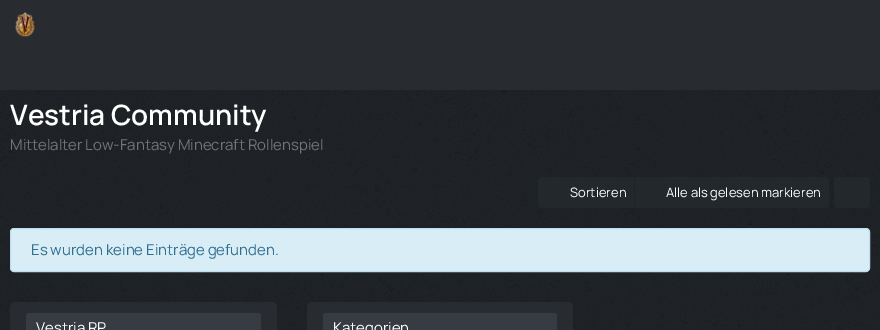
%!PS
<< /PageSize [880 330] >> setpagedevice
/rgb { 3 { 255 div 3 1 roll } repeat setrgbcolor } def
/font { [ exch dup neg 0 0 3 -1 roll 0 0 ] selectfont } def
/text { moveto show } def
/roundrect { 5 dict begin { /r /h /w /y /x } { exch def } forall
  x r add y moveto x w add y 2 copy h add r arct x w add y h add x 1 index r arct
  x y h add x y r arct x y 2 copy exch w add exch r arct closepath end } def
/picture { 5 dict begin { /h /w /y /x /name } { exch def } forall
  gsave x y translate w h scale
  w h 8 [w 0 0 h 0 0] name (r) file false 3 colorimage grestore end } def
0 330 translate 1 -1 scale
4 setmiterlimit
255 255 255 rgb
0 0 880 330 rectfill
(img_01.rgb) 0 90 880 240 picture
40 44 48 rgb
0 0 880 90 rectfill
(img_02.rgb) 15 12 20 25 picture
35 40 45 rgb
542 177 moveto 92 0 rlineto 0 31 rlineto -92 0 rlineto -2 0 -4 -2 -4 -4 rcurveto 0 -23 rlineto 0 -2 2 -4 4 -4 rcurveto closepath fill
635 177 moveto 190 0 rlineto 2 0 4 2 4 4 rcurveto 0 23 rlineto 0 2 -2 4 -4 4 rcurveto -190 0 rlineto closepath fill
834 177 36 31 4 roundrect fill
217 237 247 rgb
10.5 228.5 859 43 3.5 roundrect gsave fill grestore
188 223 241 rgb
stroke
40 44 48 rgb
10 302 267 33 5 roundrect fill
54 60 66 rgb
26 313 235 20 3 roundrect fill
40 44 48 rgb
307 302 266 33 5 roundrect fill
54 60 66 rgb
323 313 234 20 3 roundrect fill
/Manrope-SemiBold 28 font
255 255 255 rgb
(Vestria Community) 10 125 text
/Manrope-Regular 15 font
113 117 122 rgb
(Mittelalter Low-Fantasy Minecraft Rollenspiel) 10 150 text
/Manrope-Regular 13 font
255 255 255 rgb
(Sortieren) 570 197 text
(Alle als gelesen markieren) 666 197 text
/Manrope-Regular 15 font
49 112 143 rgb
(Es wurden keine Einträge gefunden.) 31 255 text
255 255 255 rgb
(Vestria RP) 36 333 text
(Kategorien) 333 333 text
showpage
